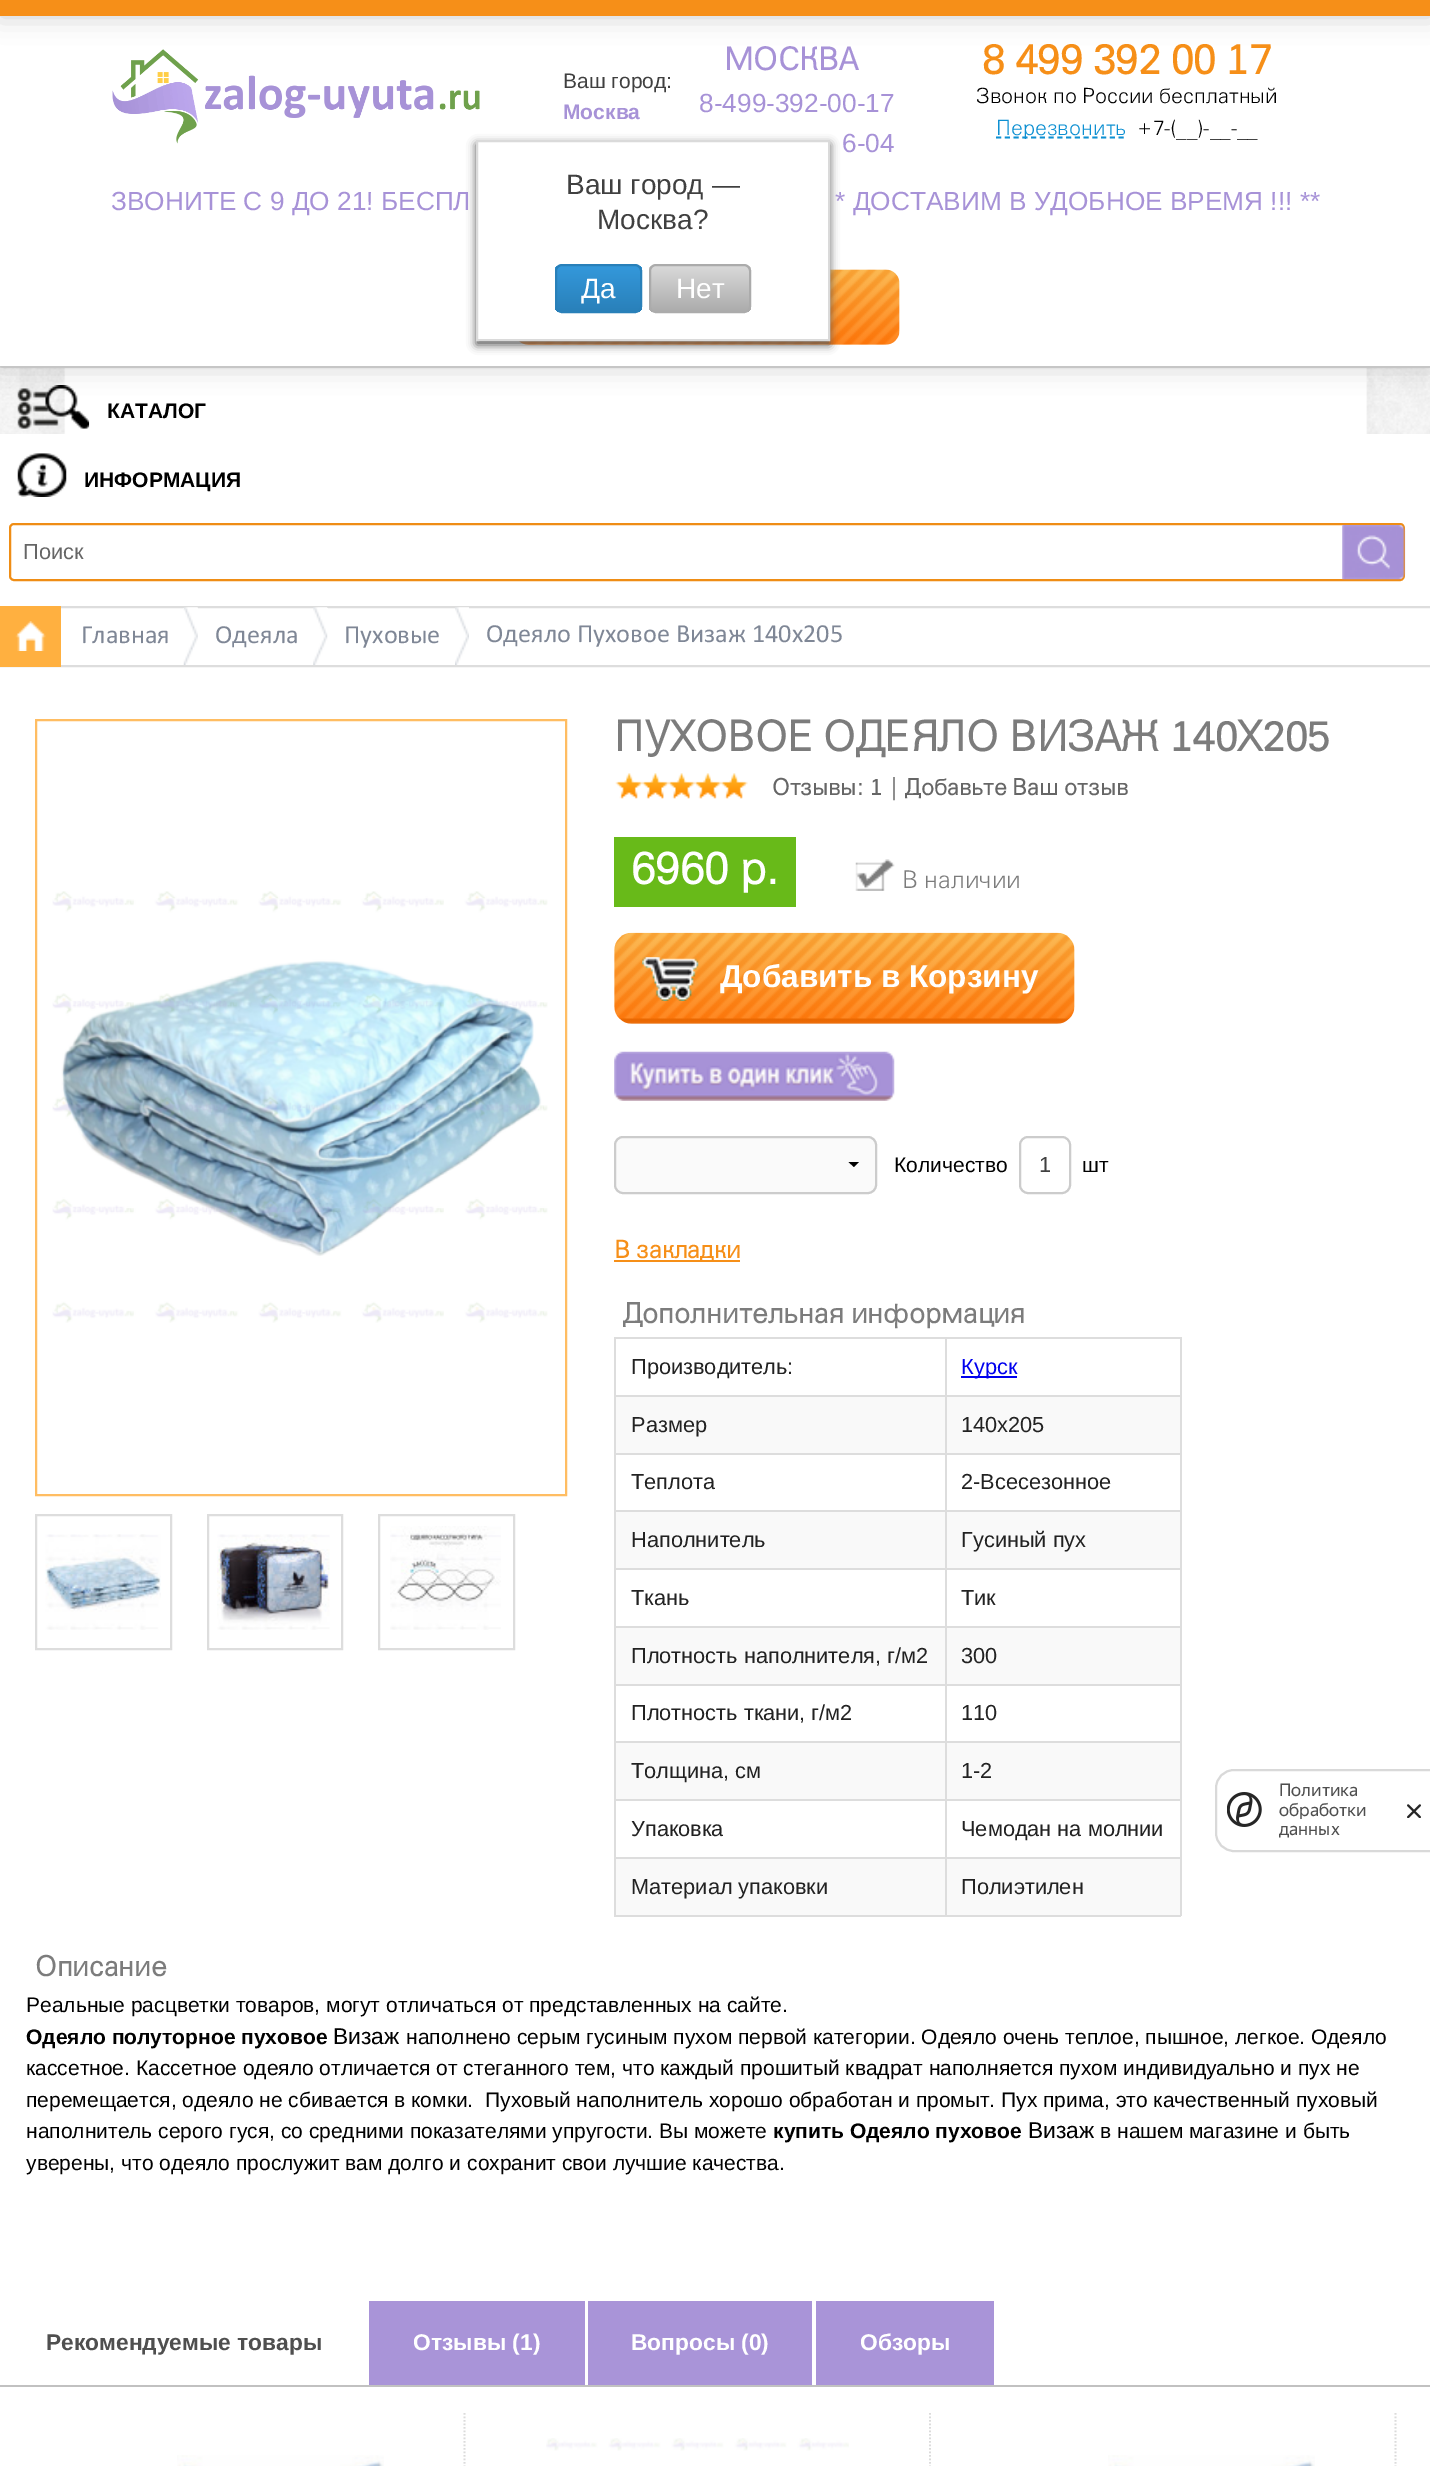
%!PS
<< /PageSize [1430 2466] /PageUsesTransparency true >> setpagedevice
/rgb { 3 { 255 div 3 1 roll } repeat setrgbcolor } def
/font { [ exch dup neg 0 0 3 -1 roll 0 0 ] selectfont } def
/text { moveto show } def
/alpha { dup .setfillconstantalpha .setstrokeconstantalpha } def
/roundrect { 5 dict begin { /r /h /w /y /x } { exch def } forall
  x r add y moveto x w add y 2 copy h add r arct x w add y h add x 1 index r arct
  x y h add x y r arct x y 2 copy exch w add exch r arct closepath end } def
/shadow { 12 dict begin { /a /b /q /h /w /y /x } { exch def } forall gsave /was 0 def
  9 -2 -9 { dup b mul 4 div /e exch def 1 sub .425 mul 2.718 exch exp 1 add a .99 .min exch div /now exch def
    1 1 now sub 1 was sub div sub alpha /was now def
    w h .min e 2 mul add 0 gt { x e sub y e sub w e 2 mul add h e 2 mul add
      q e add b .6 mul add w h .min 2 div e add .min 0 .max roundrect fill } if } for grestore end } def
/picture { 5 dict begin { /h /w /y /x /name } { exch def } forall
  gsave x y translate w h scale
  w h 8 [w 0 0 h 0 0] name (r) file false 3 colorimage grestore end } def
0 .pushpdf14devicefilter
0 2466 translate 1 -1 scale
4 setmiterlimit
255 255 255 rgb
0 0 1430 2466 rectfill
(img_01.rgb) 0 368 1430 66 picture
221 221 221 rgb
0 366 1430 2 rectfill
(img_04.rgb) 17 385 73 44 picture
0 0 0 rgb
0 0 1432 366 0 13 0.2 shadow
255 255 255 rgb
0 16 1430 350 rectfill
0 0 0 rgb
0 0 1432 16 0 13 0.2 shadow
246 143 24 rgb
0 0 1430 16 rectfill
(img_02.rgb) 112 49 368 95 picture
(img_03.rgb) 519 269 381 76 picture
91 90 90 rgb
476 144 354 201 0 4.5 1 shadow
255 255 255 rgb
477 141 moveto 352 0 rlineto 0 199 rlineto -352 0 rlineto closepath gsave fill grestore
218 218 218 rgb
2 setlinewidth
stroke
gsave
555 264 87 49 7 roundrect clip newpath
gsave 555 266 moveto 87 0 rlineto 0 46 rlineto -87 0 rlineto closepath clip newpath
<< /ShadingType 2 /ColorSpace /DeviceRGB /Coords [599 266 599 312] /Extend [true true] /Function << /FunctionType 2 /Domain [0 1] /C0 [0.204 0.596 0.859] /C1 [0.161 0.502 0.725] /N 1 >> >> shfill grestore
grestore
41 128 185 rgb
556 265 85 47 6 roundrect stroke
gsave
649 264 102 49 7 roundrect clip newpath
gsave 649 266 moveto 102 0 rlineto 0 46 rlineto -102 0 rlineto closepath clip newpath
<< /ShadingType 2 /ColorSpace /DeviceRGB /Coords [700 266 700 312] /Extend [true true] /Function << /FunctionType 2 /Domain [0 1] /C0 [0.851 0.851 0.851] /C1 [0.671 0.671 0.671] /N 1 >> >> shfill grestore
grestore
171 171 171 rgb
650 265 100 47 6 roundrect stroke
14 144 210 rgb
1.8 setlinewidth
[5.25 3.5] 0 setdash
996 137.5 moveto 130.5 0 rlineto stroke
(img_05.rgb) 17 453 50 44 picture
239 141 21 rgb
2 setlinewidth
[] 0 setdash
10 524 1394 56 4 roundrect stroke
(img_06.rgb) 1342 525 64 55 picture
221 221 221 rgb
1 607 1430 59 rectstroke
255 176 64 rgb
0 606 61 61 rectfill
(img_07.rgb) 15 621 31 30 picture
(img_08.rgb) 183 607 15 58 picture
(img_09.rgb) 313 607 15 58 picture
(img_10.rgb) 455 607 14 58 picture
255 189 98 rgb
36 720 530 775 rectstroke
(img_11.rgb) 52 891 496 432 picture
221 221 221 rgb
36 1515 135 134 rectstroke
(img_12.rgb) 45 1534 116 96 picture
208 1515 134 134 rectstroke
(img_13.rgb) 217 1534 113 96 picture
379 1515 135 134 rectstroke
(img_14.rgb) 390 1526 111 104 picture
(img_15.rgb) 615 773 133 26 picture
104 186 25 rgb
614 837 182 70 rectfill
(img_16.rgb) 855 859 40 32 picture
(img_17.rgb) 614 932 461 92 picture
(img_18.rgb) 642 957 57 44 picture
(img_19.rgb) 614 1051 281 50 picture
250 250 250 rgb
614 1136 263 58 9 roundrect fill
0 0 0 rgb
859 1162 moveto -5 5 rlineto -5.5 -5 rlineto closepath fill
204 204 204 rgb
615 1137 261 56 8 roundrect stroke
1020 1137 50 56 8 roundrect stroke
246 143 24 rgb
614 1260 126 2 rectfill
221 221 221 rgb
614 1337 567 2 rectfill
1180 1337 2 579 rectfill
614 1915 567 2 rectfill
614 1337 2 579 rectfill
0 0 238 rgb
961 1376 56 2 rectfill
249 249 249 rgb
616 1397 564 56 rectfill
221 221 221 rgb
614 1395 567 2 rectfill
614 1453 567 2 rectfill
249 249 249 rgb
616 1512 564 56 rectfill
221 221 221 rgb
614 1510 567 2 rectfill
614 1568 567 2 rectfill
249 249 249 rgb
616 1628 564 56 rectfill
221 221 221 rgb
614 1626 567 2 rectfill
614 1684 567 2 rectfill
249 249 249 rgb
616 1743 564 56 rectfill
221 221 221 rgb
614 1741 567 2 rectfill
614 1799 567 2 rectfill
249 249 249 rgb
616 1859 564 56 rectfill
221 221 221 rgb
614 1857 567 2 rectfill
945 1337 2 579 rectfill
169 148 216 rgb
369 2301 216 84 rectfill
588 2301 224 84 rectfill
816 2301 178 84 rectfill
193 193 193 rgb
0 2385 1430 2 rectfill
219 219 219 rgb
1.8 setlinewidth
[1.75 1.75] 0 setdash
464.5 2413 moveto 0 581 rlineto stroke
(img_20.rgb) 177 2455 207 11 picture
930 2413 moveto 0 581 rlineto stroke
(img_21.rgb) 546 2438 303 13 picture
1395.5 2413 moveto 0 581 rlineto stroke
(img_20.rgb) 1108 2455 207 11 picture
217 217 217 rgb
2 setlinewidth
[] 0 setdash
1216 1770 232 81 18 roundrect stroke
(img_22.rgb) 1227 1792 35 35 picture
(img_23.rgb) 1407 1804 14 14 picture
/LiberationSans-Regular 21 font
64 64 64 rgb
(Ваш город:) 563 88 text
/LiberationSans-Bold 21 font
167 146 215 rgb
(Москва) 563 119 text
/LiberationSans-Regular 28 font
64 64 64 rgb
(Ваш город —) 566 194 text
(Москва?) 597 229 text
255 255 255 rgb
(Да) 581 298 text
(Нет) 676 298 text
/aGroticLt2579-Bold 31.5 font
167 146 215 rgb
(МОСКВА) 724 70 text
/LiberationSans-Regular 26.25 font
(8-499-392-00-17) 699 112 text
(6-04) 842 152 text
/aGroticLt2579-Bold 42 font
246 143 24 rgb
(8 499 392 00 17) 982 74 text
/aGroticLt2579-Regular 21 font
0 0 0 rgb
(Звонок по России бесплатный) 976 103 text
14 144 210 rgb
(Перезвонить) 996 135 text
0 0 0 rgb
(+7-\(__\)-__-__) 1136 135 text
/LiberationSans-Regular 26.25 font
167 146 215 rgb
(ЗВОНИТЕ С 9 ДО 21! БЕСПЛ) 111 210 text
(* ДОСТАВИМ В УДОБНОЕ ВРЕМЯ !!! **) 835 210 text
/LiberationSans-Bold 21 font
0 0 0 rgb
(КАТАЛОГ) 107 418 text
(ИНФОРМАЦИЯ) 84 487 text
/LiberationSans-Regular 21.75 font
102 102 102 rgb
(Поиск) 23 559 text
/calibri-Regular 26.25 font
127 135 150 rgb
(Главная) 81 643 text
(Одеяла) 215 643 text
(Пуховые) 344 643 text
(Одеяло Пуховое Визаж 140х205) 486 642 text
/aGroticLt2579-Bold 42 font
124 124 124 rgb
(ПУХОВОЕ ОДЕЯЛО ВИЗАЖ 140Х205) 614 751 text
/aGroticLt2579-Bold 22.75 font
102 102 102 rgb
(Отзывы: 1 | Добавьте Ваш отзыв) 772 795 text
/aGroticLt2579-Bold 45.5 font
255 255 255 rgb
(6960 р.) 631 884 text
/aGroticLt2579-Regular 24.5 font
124 124 124 rgb
(В наличии) 902 888 text
/LiberationSans-Bold 31.5 font
255 255 255 rgb
(Добавить в Корзину) 720 987 text
/LiberationSans-Regular 21 font
0 0 0 rgb
(Количество) 894 1172 text
/LiberationSans-Regular 21.75 font
64 64 64 rgb
(1) 1039 1172 text
/LiberationSans-Regular 21 font
0 0 0 rgb
(шт) 1082 1172 text
/aGroticLt2579-Bold 24.5 font
246 143 24 rgb
(В закладки) 614 1258 text
/aGroticLt2579-Bold 28 font
124 124 124 rgb
(Дополнительная информация) 623 1323 text
/LiberationSans-Regular 21.75 font
34 34 34 rgb
(Производитель:) 631 1374 text
0 0 238 rgb
(Курск) 961 1374 text
34 34 34 rgb
(Размер) 631 1432 text
(140х205) 961 1432 text
(Теплота) 631 1489 text
(2-Всесезонное) 961 1489 text
(Наполнитель) 631 1547 text
(Гусиный пух) 961 1547 text
(Ткань) 631 1605 text
(Тик) 961 1605 text
(Плотность наполнителя, г/м2) 631 1663 text
(300) 961 1663 text
(Плотность ткани, г/м2) 631 1720 text
(110) 961 1720 text
(Толщина, см) 631 1778 text
(1-2) 961 1778 text
(Упаковка) 631 1836 text
(Чемодан на молнии) 961 1836 text
(Материал упаковки) 631 1894 text
(Полиэтилен) 961 1894 text
/aGroticLt2579-Bold 28 font
124 124 124 rgb
(Описание) 35 1976 text
/LiberationSans-Regular 21 font
0 0 0 rgb
(Реальные расцветки товаров, могут отличаться от представленных на сайте.) 26 2012 text
/LiberationSans-Bold 21 font
(Одеяло полуторное пуховое) 26 2044 text
/LiberationSans-Regular 22.75 font
(Визаж) 333 2044 text
/LiberationSans-Regular 21 font
(наполнено серым гусиным пухом первой категории. Одеяло очень теплое, пышное, легкое. Одеяло) 406 2044 text
(кассетное. Кассетное одеяло отличается от стеганного тем, что каждый прошитый квадрат наполняется пухом индивидуально и пух не) 26 2075 text
(перемещается, одеяло не сбивается в комки.  Пуховый наполнитель хорошо обработан и промыт. Пух прима, это качественный пуховый) 26 2107 text
(наполнитель серого гуся, со средними показателями упругости. Вы можете) 26 2138 text
/LiberationSans-Bold 21 font
(купить Одеяло пуховое) 773 2138 text
/LiberationSans-Regular 22.75 font
(Визаж) 1028 2138 text
/LiberationSans-Regular 21 font
(в нашем магазине и быть) 1100 2138 text
(уверены, что одеяло прослужит вам долго и сохранит свои лучшие качества.) 26 2170 text
/LiberationSans-Bold 22.75 font
79 79 79 rgb
(Рекомендуемые товары) 46 2350 text
255 255 255 rgb
(Отзывы \(1\)) 413 2350 text
(Вопросы \(0\)) 631 2350 text
(Обзоры) 860 2350 text
/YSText-Regular 17.5 font
79 79 79 rgb
(Политика) 1279 1796 text
(обработки) 1279 1816 text
(данных) 1279 1835 text
.poppdf14devicefilter showpage
